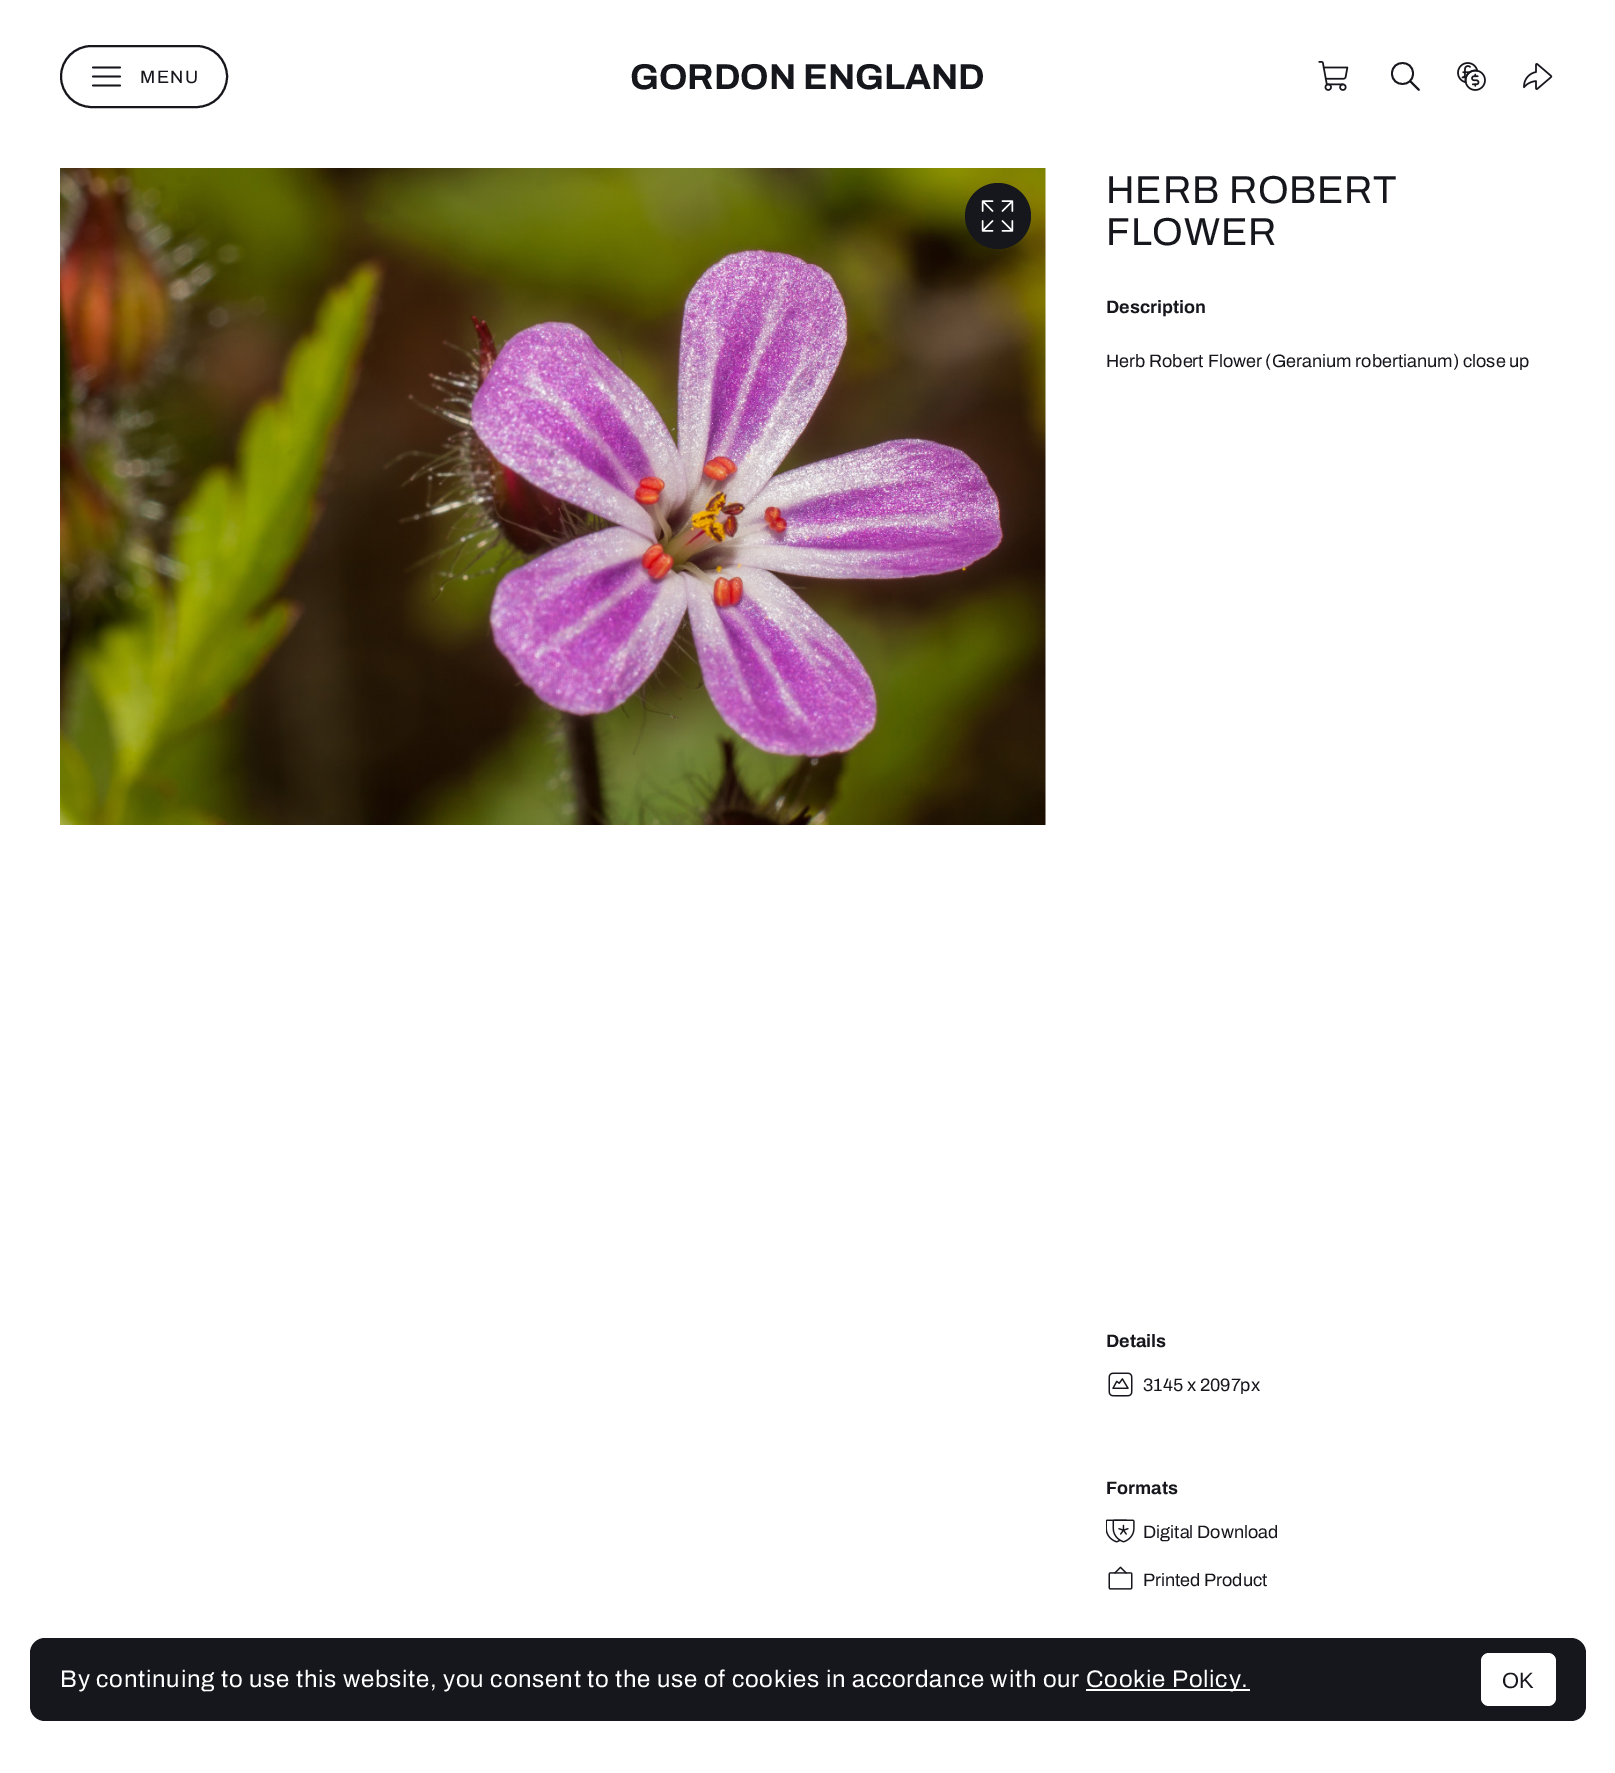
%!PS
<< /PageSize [1615 1773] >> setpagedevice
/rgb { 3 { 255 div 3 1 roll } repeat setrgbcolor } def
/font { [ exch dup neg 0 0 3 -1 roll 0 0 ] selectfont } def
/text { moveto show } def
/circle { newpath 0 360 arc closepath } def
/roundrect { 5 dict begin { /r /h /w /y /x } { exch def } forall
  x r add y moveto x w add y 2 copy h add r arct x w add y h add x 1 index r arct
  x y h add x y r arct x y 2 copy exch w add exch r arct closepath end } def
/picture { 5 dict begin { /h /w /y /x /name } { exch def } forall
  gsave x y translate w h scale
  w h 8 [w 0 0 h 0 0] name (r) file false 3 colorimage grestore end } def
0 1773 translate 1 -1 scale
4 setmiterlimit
255 255 255 rgb
0 0 1615 1773 rectfill
22 22 29 rgb
2 setlinewidth
61 46 166 61 30.5 roundrect stroke
1.8 setlinewidth
1 setlinecap
1 setlinejoin
93 76.5 moveto 27 0 rlineto 93 67.5 moveto 27 0 rlineto 93 85.5 moveto 27 0 rlineto stroke
(img_01.rgb) 1318 61 31 30 picture
1419 90 moveto -9 -9 rlineto 1413 73.5 moveto 0 14 -21 14 -21 0 rcurveto 0 -14 21 -14 21 0 rcurveto closepath stroke
(img_02.rgb) 1457 62 29 29 picture
(img_03.rgb) 1523 63 30 27 picture
(img_04.rgb) 60 168 986 657 picture
998 216 33 circle fill
(img_05.rgb) 981 200 33 32 picture
(img_06.rgb) 1108 1372 25 25 picture
(img_07.rgb) 1106 1519 29 24 picture
(img_08.rgb) 1108 1566 25 24 picture
30 1638 1556 83 15 roundrect fill
255 255 255 rgb
1086 1689 164 2 rectfill
1481 1653 75 53 8 roundrect fill
/Archivo-Regular 18 font
22 22 29 rgb
140 83 moveto 1.5 0 (MENU) ashow
/Archivo-Bold 36 font
(GORDON ENGLAND) 630 89 text
/Archivo-Regular 39 font
1106 203 moveto 0.75 0 (HERB ROBERT) ashow
1106 245 moveto 0.75 0 (FLOWER) ashow
/Archivo-Bold 18 font
(Description) 1106 313 text
/Archivo-Regular 18 font
(Herb Robert Flower \(Geranium robertianum\) close up) 1106 367 text
/Archivo-Bold 18 font
(Details) 1106 1347 text
/Archivo-Regular 18 font
(3145 x 2097px) 1143 1391 text
/Archivo-Bold 18 font
(Formats) 1106 1494 text
/Archivo-Regular 18 font
(Digital Download) 1143 1538 text
(Printed Product) 1143 1586 text
/Archivo-Regular 24 font
255 255 255 rgb
60 1687 moveto 0.75 0 (By continuing to use this website, you consent to the use of cookies in accordance with our) ashow
1086 1687 moveto 0.75 0 (Cookie Policy.) ashow
/LiberationSans-Regular 22 font
22 22 29 rgb
(OK) 1502 1688 text
showpage
